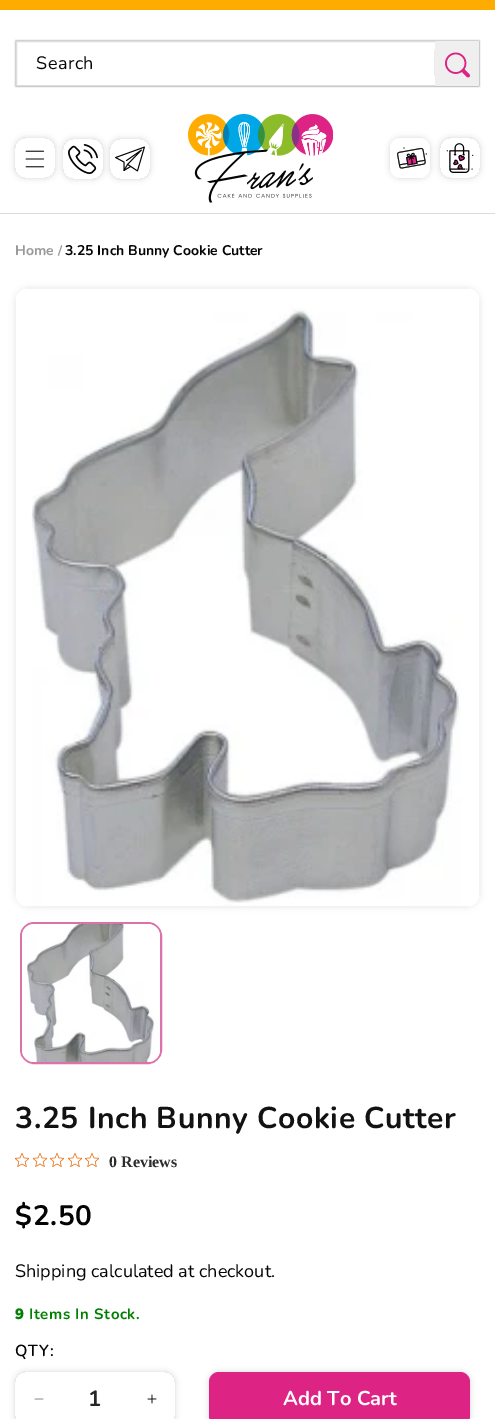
%!PS
<< /PageSize [495 1419] /PageUsesTransparency true >> setpagedevice
/rgb { 3 { 255 div 3 1 roll } repeat setrgbcolor } def
/font { [ exch dup neg 0 0 3 -1 roll 0 0 ] selectfont } def
/text { moveto show } def
/alpha { dup .setfillconstantalpha .setstrokeconstantalpha } def
/roundrect { 5 dict begin { /r /h /w /y /x } { exch def } forall
  x r add y moveto x w add y 2 copy h add r arct x w add y h add x 1 index r arct
  x y h add x y r arct x y 2 copy exch w add exch r arct closepath end } def
/shadow { 12 dict begin { /a /b /q /h /w /y /x } { exch def } forall gsave /was 0 def
  9 -2 -9 { dup b mul 4 div /e exch def 1 sub .425 mul 2.718 exch exp 1 add a .99 .min exch div /now exch def
    1 1 now sub 1 was sub div sub alpha /was now def
    w h .min e 2 mul add 0 gt { x e sub y e sub w e 2 mul add h e 2 mul add
      q e add b .6 mul add w h .min 2 div e add .min 0 .max roundrect fill } if } for grestore end } def
/picture { 5 dict begin { /h /w /y /x /name } { exch def } forall
  gsave x y translate w h scale
  w h 8 [w 0 0 h 0 0] name (r) file false 3 colorimage grestore end } def
0 .pushpdf14devicefilter
0 1419 translate 1 -1 scale
4 setmiterlimit
255 255 255 rgb
0 0 495 1419 rectfill
255 172 0 rgb
0 0 495 10 rectfill
219 219 219 rgb
0 213 495 1 rectfill
221 221 221 rgb
16.5 41.5 462 44 rectstroke
236 236 236 rgb
434 50 1 26 rectfill
239 239 239 rgb
435 41 44 46 rectfill
(img_01.rgb) 445 52 25 26 picture
gsave
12 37 moveto 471 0 rlineto 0 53 rlineto -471 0 rlineto closepath 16 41 moveto 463 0 rlineto 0 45 rlineto -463 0 rlineto closepath eoclip newpath
0 0 0 rgb
16 41 463 45 0 1 0.55 shadow
grestore
gsave
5 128 moveto 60 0 rlineto 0 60 rlineto -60 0 rlineto closepath 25 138 moveto 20 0 rlineto 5.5 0 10 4.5 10 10 rcurveto 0 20 rlineto 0 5.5 -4.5 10 -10 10 rcurveto -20 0 rlineto -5.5 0 -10 -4.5 -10 -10 rcurveto 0 -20 rlineto 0 -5.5 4.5 -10 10 -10 rcurveto closepath eoclip newpath
0 0 0 rgb
15 138 40 40 10 3 0.16 shadow
grestore
(img_02.rgb) 25 150 20 18 picture
gsave
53 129 moveto 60 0 rlineto 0 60 rlineto -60 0 rlineto closepath 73 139 moveto 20 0 rlineto 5.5 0 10 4.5 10 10 rcurveto 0 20 rlineto 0 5.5 -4.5 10 -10 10 rcurveto -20 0 rlineto -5.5 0 -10 -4.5 -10 -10 rcurveto 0 -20 rlineto 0 -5.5 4.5 -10 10 -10 rcurveto closepath eoclip newpath
0 0 0 rgb
63 139 40 40 10 3 0.16 shadow
grestore
(img_03.rgb) 68 144 30 30 picture
gsave
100 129 moveto 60 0 rlineto 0 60 rlineto -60 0 rlineto closepath 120 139 moveto 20 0 rlineto 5.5 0 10 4.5 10 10 rcurveto 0 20 rlineto 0 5.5 -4.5 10 -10 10 rcurveto -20 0 rlineto -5.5 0 -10 -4.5 -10 -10 rcurveto 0 -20 rlineto 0 -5.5 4.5 -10 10 -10 rcurveto closepath eoclip newpath
0 0 0 rgb
110 139 40 40 10 3 0.16 shadow
grestore
(img_04.rgb) 115 146 30 26 picture
(img_05.rgb) 188 114 145 89 picture
0 0 0 rgb
390 138 40 40 10 3 0.16 shadow
255 255 255 rgb
390 138 40 40 10 roundrect fill
(img_06.rgb) 397 147 30 22 picture
gsave
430 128 moveto 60 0 rlineto 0 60 rlineto -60 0 rlineto closepath 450 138 moveto 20 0 rlineto 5.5 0 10 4.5 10 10 rcurveto 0 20 rlineto 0 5.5 -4.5 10 -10 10 rcurveto -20 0 rlineto -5.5 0 -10 -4.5 -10 -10 rcurveto 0 -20 rlineto 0 -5.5 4.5 -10 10 -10 rcurveto closepath eoclip newpath
0 0 0 rgb
440 138 40 40 10 3 0.16 shadow
grestore
(img_07.rgb) 446 143 28 30 picture
0 0 0 rgb
15 288 465 619 14 3 0.1 shadow
255 255 255 rgb
15 288 465 619 14 roundrect fill
243 243 243 rgb
15 302 moveto 0 591 rlineto 1 5 rlineto 0 -601 rlineto closepath 29 288 moveto -5 1 rlineto 447 0 rlineto -5 -1 rlineto closepath 480 302 moveto -1 -5 rlineto 0 601 rlineto 1 -5 rlineto closepath 466 907 moveto 5 -1 rlineto -447 0 rlineto 5 1 rlineto closepath eofill
(img_08.rgb) 31 307 430 599 picture
221 113 169 rgb
2 setlinewidth
21 923 140 140 13 roundrect stroke
(img_09.rgb) 22 924 138 138 picture
(img_10.rgb) 15 1153 14 14 picture
(img_10.rgb) 33 1153 14 14 picture
(img_10.rgb) 50 1153 14 14 picture
(img_10.rgb) 68 1153 14 14 picture
(img_10.rgb) 85 1153 14 14 picture
gsave
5 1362 moveto 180 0 rlineto 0 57 rlineto -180 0 rlineto closepath 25 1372 moveto 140 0 rlineto 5.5 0 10 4.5 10 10 rcurveto 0 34 rlineto 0 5.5 -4.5 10 -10 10 rcurveto -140 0 rlineto -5.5 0 -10 -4.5 -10 -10 rcurveto 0 -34 rlineto 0 -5.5 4.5 -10 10 -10 rcurveto closepath eoclip newpath
0 0 0 rgb
15 1372 160 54 10 3 0.16 shadow
grestore
(img_11.rgb) 34 1398 10 2 picture
(img_12.rgb) 147 1394 10 10 picture
0 0 0 rgb
209 1372 261 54 10 3 0.16 shadow
221 36 132 rgb
209 1372 261 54 10 roundrect fill
/Nunito-Regular 18 font
3 4 4 rgb
36 69 moveto 0.5 0 (Search) ashow
/Nunito-Bold 14 font
153 153 153 rgb
(Home) 15 255 text
/Nunito-Bold 13 font
58 255 moveto 0.6 0 (/) ashow
/Nunito-Bold 14 font
3 4 4 rgb
(3.25 Inch Bunny Cookie Cutter) 65 255 text
/Nunito-Bold 30 font
18 18 18 rgb
15 1128 moveto 0.6 0 (3.25 Inch Bunny Cookie Cutter) ashow
/LiberationSerif-Bold 16 font
44 44 44 rgb
(0 Reviews) 109 1167 text
/Nunito-Bold 28 font
3 4 4 rgb
15 1225 moveto 0.75 0 ($2.50) ashow
/Nunito-Regular 18 font
(Shipping) 15 1277 text
(calculated at checkout.) 91 1277 text
/Nunito-Black 15 font
0 128 0 rgb
15 1319 moveto 0.6 0 (9) ashow
/Nunito-Bold 15 font
29 1319 moveto 0.6 0 (Items In Stock.) ashow
/Nunito-SemiBold 16 font
3 4 4 rgb
15 1356 moveto 1 0 (QTY:) ashow
/Nunito-Bold 22 font
38 38 38 rgb
(1) 88 1406 text
/Nunito-Bold 20 font
255 255 255 rgb
(Add To Cart) 283 1405 text
.poppdf14devicefilter showpage
